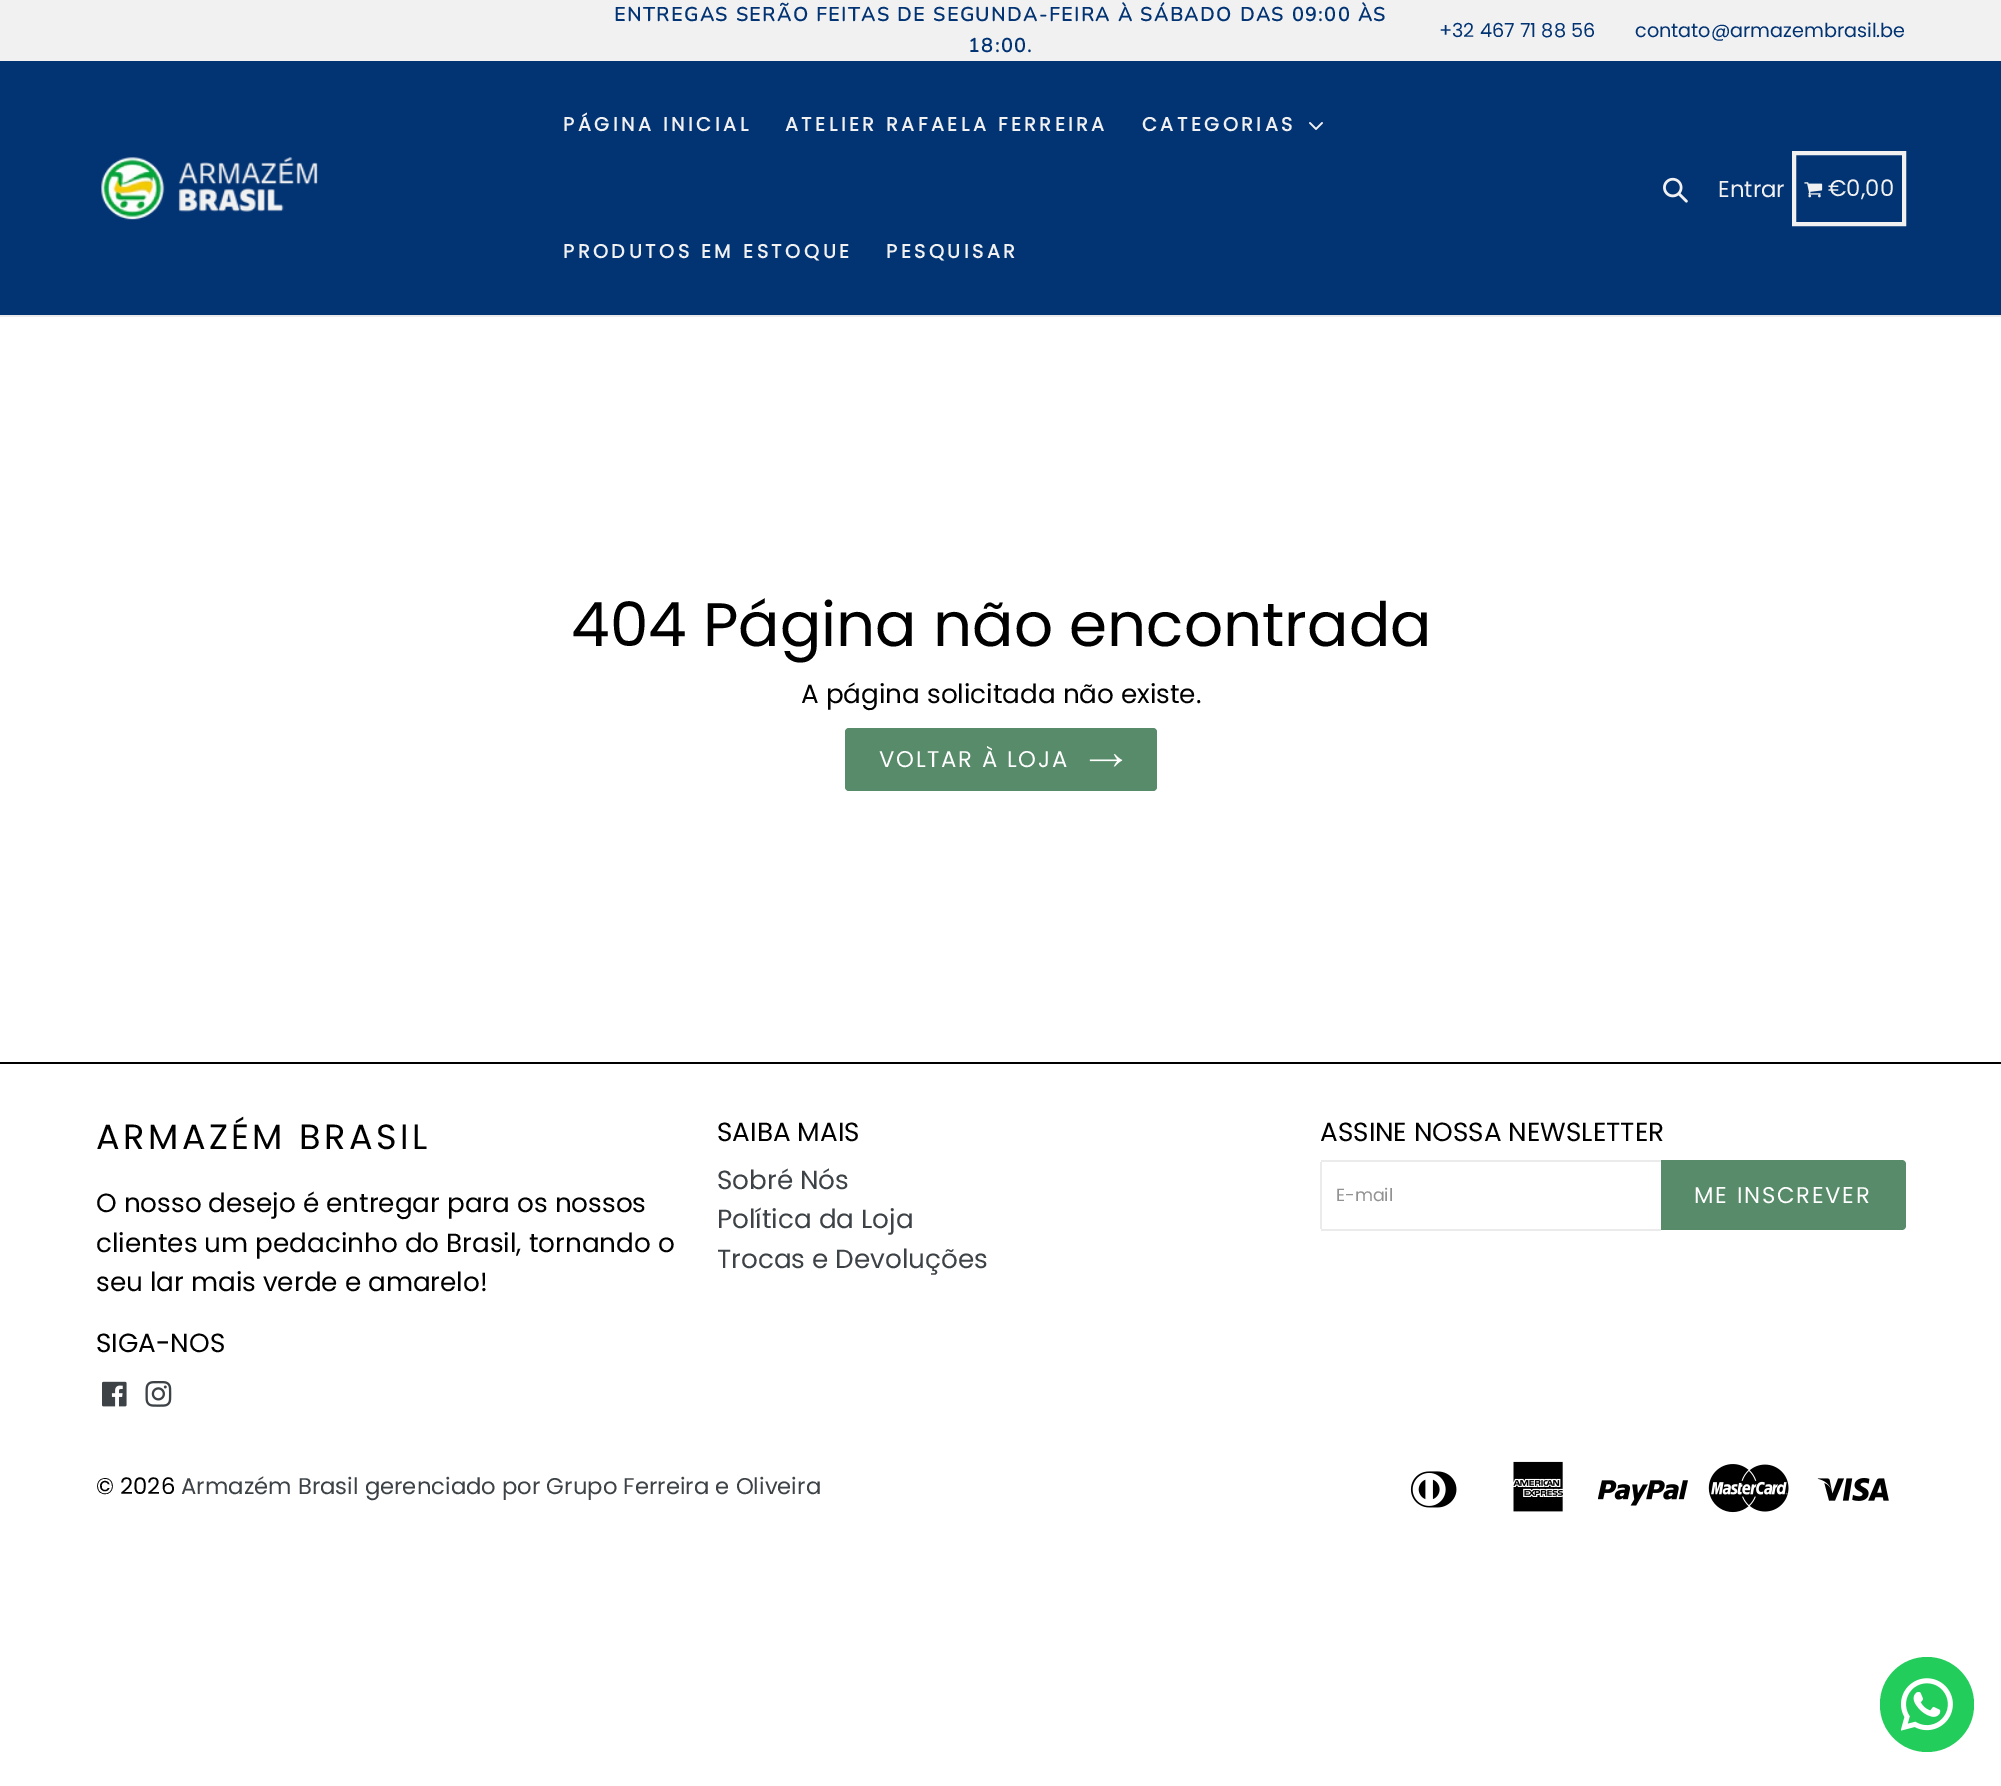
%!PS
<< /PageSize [2001 1786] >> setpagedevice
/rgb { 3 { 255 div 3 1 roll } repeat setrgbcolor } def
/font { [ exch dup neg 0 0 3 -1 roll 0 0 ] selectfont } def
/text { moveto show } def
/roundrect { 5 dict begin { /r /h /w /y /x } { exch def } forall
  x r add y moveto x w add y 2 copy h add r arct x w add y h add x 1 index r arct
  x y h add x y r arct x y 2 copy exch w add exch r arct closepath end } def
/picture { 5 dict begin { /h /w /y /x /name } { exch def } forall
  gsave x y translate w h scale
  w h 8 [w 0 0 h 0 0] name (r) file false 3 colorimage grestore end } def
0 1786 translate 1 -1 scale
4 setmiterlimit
255 255 255 rgb
0 0 2001 1786 rectfill
241 241 241 rgb
0 0 2001 61 rectfill
2 51 115 rgb
0 61 2001 254 rectfill
235 235 235 rgb
0 315 2001 2 rectfill
(img_01.rgb) 101 157 217 63 picture
(img_02.rgb) 1309 122 14 8 picture
(img_03.rgb) 1663 177 25 26 picture
241 241 241 rgb
4 setlinewidth
1794 153 110 71 rectstroke
(img_04.rgb) 1804 182 19 16 picture
87 139 105 rgb
845 728 312 63 4 roundrect fill
(img_05.rgb) 1089 754 34 13 picture
0 0 0 rgb
0 1062 2001 2 rectfill
(img_06.rgb) 102 1381 25 26 picture
(img_07.rgb) 145 1381 27 26 picture
235 235 235 rgb
1321 1160 340 2 rectfill
1321 1229 340 2 rectfill
1320 1162 2 67 rectfill
87 139 105 rgb
1661 1160 moveto 241 0 rlineto 2 0 4 2 4 4 rcurveto 0 62 rlineto 0 2 -2 4 -4 4 rcurveto -241 0 rlineto closepath fill
(img_08.rgb) 1410 1471 47 37 picture
(img_09.rgb) 1513 1461 50 51 picture
(img_10.rgb) 1598 1480 90 26 picture
(img_11.rgb) 1708 1464 81 49 picture
(img_12.rgb) 1817 1478 72 23 picture
34 205 91 rgb
1880 1657 94 95 47 roundrect fill
(img_13.rgb) 1901 1678 52 53 picture
/Nunito-Bold 19.25 font
2 51 115 rgb
614 21 moveto 1.75 0 (ENTREGAS SERÃO FEITAS DE SEGUNDA-FEIRA À SÁBADO DAS 09:00 ÀS) ashow
968 52 moveto 1.75 0 (18:00.) ashow
/Poppins-Regular 19.25 font
(+32 467 71 88 56) 1439 37 text
(contato@armazembrasil.be) 1635 37 text
/Poppins-Bold 19.25 font
241 241 241 rgb
563 131 moveto 3.5 0 (PÁGINA INICIAL) ashow
785 131 moveto 3.5 0 (ATELIER RAFAELA FERREIRA) ashow
1142 131 moveto 3.5 0 (CATEGORIAS) ashow
563 258 moveto 3.5 0 (PRODUTOS EM ESTOQUE) ashow
886 258 moveto 3.5 0 (PESQUISAR) ashow
/Poppins-Regular 22.75 font
(Entrar) 1718 197 text
(€0,00) 1828 196 text
/Poppins-Regular 61.25 font
0 0 0 rgb
(404 Página não encontrada) 571 646 text
/Poppins-Regular 26.25 font
(A página solicitada não existe.) 801 703 text
/Poppins-Regular 22.75 font
255 255 255 rgb
879 767 moveto 1.75 0 (VOLTAR À LOJA) ashow
/Poppins-Regular 35 font
0 0 0 rgb
96 1149 moveto 3.5 0 (ARMAZÉM BRASIL) ashow
/Poppins-Regular 26.25 font
(O nosso desejo é entregar para os nossos) 96 1212 text
(clientes um pedacinho do Brasil, tornando o) 96 1252 text
(seu lar mais verde e amarelo!) 96 1291 text
(SIGA-NOS) 96 1352 text
(SAIBA MAIS) 717 1141 text
61 66 70 rgb
(Sobré Nós) 717 1189 text
(Política da Loja) 717 1228 text
(Trocas e Devoluções) 717 1268 text
0 0 0 rgb
(ASSINE NOSSA NEWSLETTER) 1320 1141 text
/Poppins-Regular 17.5 font
146 146 146 rgb
(E-mail) 1336 1201 text
/Poppins-Regular 22.75 font
255 255 255 rgb
1694 1203 moveto 1.75 0 (ME INSCREVER) ashow
0 0 0 rgb
(© 2026) 96 1494 text
61 66 70 rgb
(Armazém Brasil gerenciado por Grupo Ferreira e Oliveira) 181 1494 text
showpage
